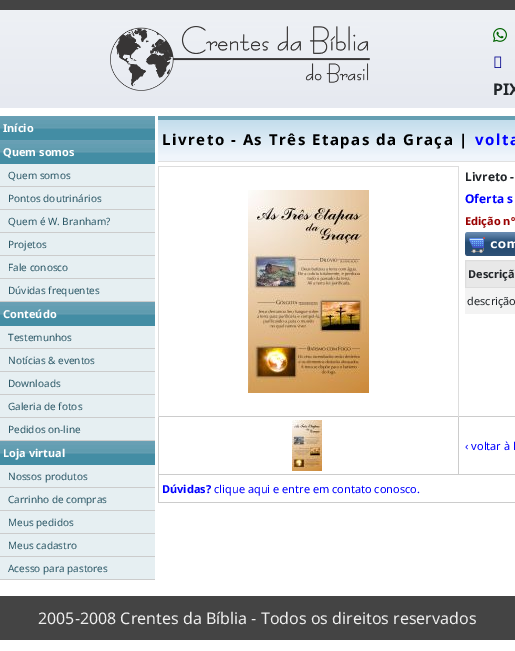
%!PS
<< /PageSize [515 651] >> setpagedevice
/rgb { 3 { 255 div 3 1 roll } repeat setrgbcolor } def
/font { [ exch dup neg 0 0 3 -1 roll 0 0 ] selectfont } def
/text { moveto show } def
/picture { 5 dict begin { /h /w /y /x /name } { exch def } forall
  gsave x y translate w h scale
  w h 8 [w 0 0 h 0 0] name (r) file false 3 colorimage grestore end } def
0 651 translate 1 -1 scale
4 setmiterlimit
255 255 255 rgb
0 0 515 651 rectfill
gsave 0 10 moveto 515 0 rlineto 0 98 rlineto -515 0 rlineto closepath clip newpath
<< /ShadingType 2 /ColorSpace /DeviceRGB /Coords [481 108 481 10] /Extend [true true] /Function << /FunctionType 2 /Domain [0 1] /C0 [0.902 0.914 0.941] /C1 [0.933 0.945 0.961] /N 1 >> >> shfill grestore
68 68 68 rgb
0 0 515 10 rectfill
(img_01.rgb) 110 26 260 65 picture
(img_02.rgb) 493 28 14 14 picture
(img_03.rgb) 494 56 8 12 picture
230 239 242 rgb
0 164 155 415 rectfill
(img_04.rgb) 0 116 155 24 picture
(img_04.rgb) 0 140 155 24 picture
204 204 204 rgb
0 186 155 1 rectfill
0 209 155 1 rectfill
0 232 155 1 rectfill
0 255 155 1 rectfill
0 278 155 1 rectfill
0 301 155 1 rectfill
(img_04.rgb) 0 302 155 24 picture
0 348 155 1 rectfill
0 371 155 1 rectfill
0 394 155 1 rectfill
0 417 155 1 rectfill
0 440 155 1 rectfill
(img_04.rgb) 0 441 155 24 picture
0 487 155 1 rectfill
0 510 155 1 rectfill
0 533 155 1 rectfill
0 556 155 1 rectfill
0 579 155 1 rectfill
(img_05.rgb) 158 116 357 45 picture
224 224 224 rgb
158 161 357 1 rectfill
221 221 221 rgb
158 166 301 1 rectfill
204 204 204 rgb
158 416 357 1 rectfill
458 474 57 1 rectfill
458 416 1 59 rectfill
221 221 221 rgb
458 166 1 251 rectfill
204 204 204 rgb
158 502 357 1 rectfill
158 474 1 29 rectfill
158 474 301 1 rectfill
158 416 1 59 rectfill
221 221 221 rgb
158 166 1 251 rectfill
(img_06.rgb) 248 190 121 203 picture
(img_07.rgb) 465 232 50 24 picture
232 232 232 rgb
465.5 260.5 moveto 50 0 rlineto 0 27 rlineto -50 0 rlineto closepath gsave fill grestore
221 221 221 rgb
stroke
243 243 243 rgb
465 288 50 26 rectfill
(img_08.rgb) 292 420 30 51 picture
68 68 68 rgb
0 596 515 44 rectfill
/NotoSans-Bold 16 font
33 37 41 rgb
(PIX) 493 95 text
/NotoSans-Bold 11 font
255 255 255 rgb
(Início) 3 132 text
(Quem somos) 3 156 text
/NotoSans-Regular 10 font
44 88 103 rgb
(Quem somos) 8 179 text
(Pontos doutrinários) 8 202 text
(Quem é W. Branham?) 8 225 text
(Projetos) 8 248 text
(Fale conosco) 8 271 text
(Dúvidas frequentes) 8 294 text
/NotoSans-Bold 11 font
255 255 255 rgb
(Conteúdo) 3 318 text
/NotoSans-Regular 10 font
44 88 103 rgb
(Testemunhos) 8 341 text
(Notícias & eventos) 8 364 text
(Downloads) 8 387 text
(Galeria de fotos) 8 410 text
(Pedidos on-line) 8 433 text
/NotoSans-Bold 11 font
255 255 255 rgb
(Loja virtual) 3 457 text
/NotoSans-Regular 10 font
44 88 103 rgb
(Nossos produtos) 8 480 text
(Carrinho de compras) 8 503 text
(Meus pedidos) 8 526 text
(Meus cadastro) 8 549 text
(Acesso para pastores) 8 572 text
/NotoSans-Bold 15 font
0 0 0 rgb
162 145 moveto 1.5 0 (Livreto - As Três Etapas da Graça |) ashow
0 0 255 rgb
475 145 moveto 1.5 0 (volta) ashow
/NotoSans-Bold 12 font
33 37 41 rgb
(Livreto -) 465 181 text
0 0 255 rgb
(Oferta s) 465 203 text
/NotoSans-Bold 11 font
153 0 0 rgb
(Edição nº) 465 225 text
33 37 41 rgb
(Descriçã) 468 278 text
/NotoSans-Regular 11 font
(descrição) 467 305 text
0 0 255 rgb
(‹ voltar à l) 465 450 text
/NotoSans-Bold 11 font
(Dúvidas?) 162 493 text
/NotoSans-Regular 11 font
(clique aqui e entre em contato conosco.) 214 493 text
/NotoSans-Regular 16 font
238 238 238 rgb
(2005-2008 Crentes da Bíblia - Todos os direitos reservados) 38 624 text
showpage
